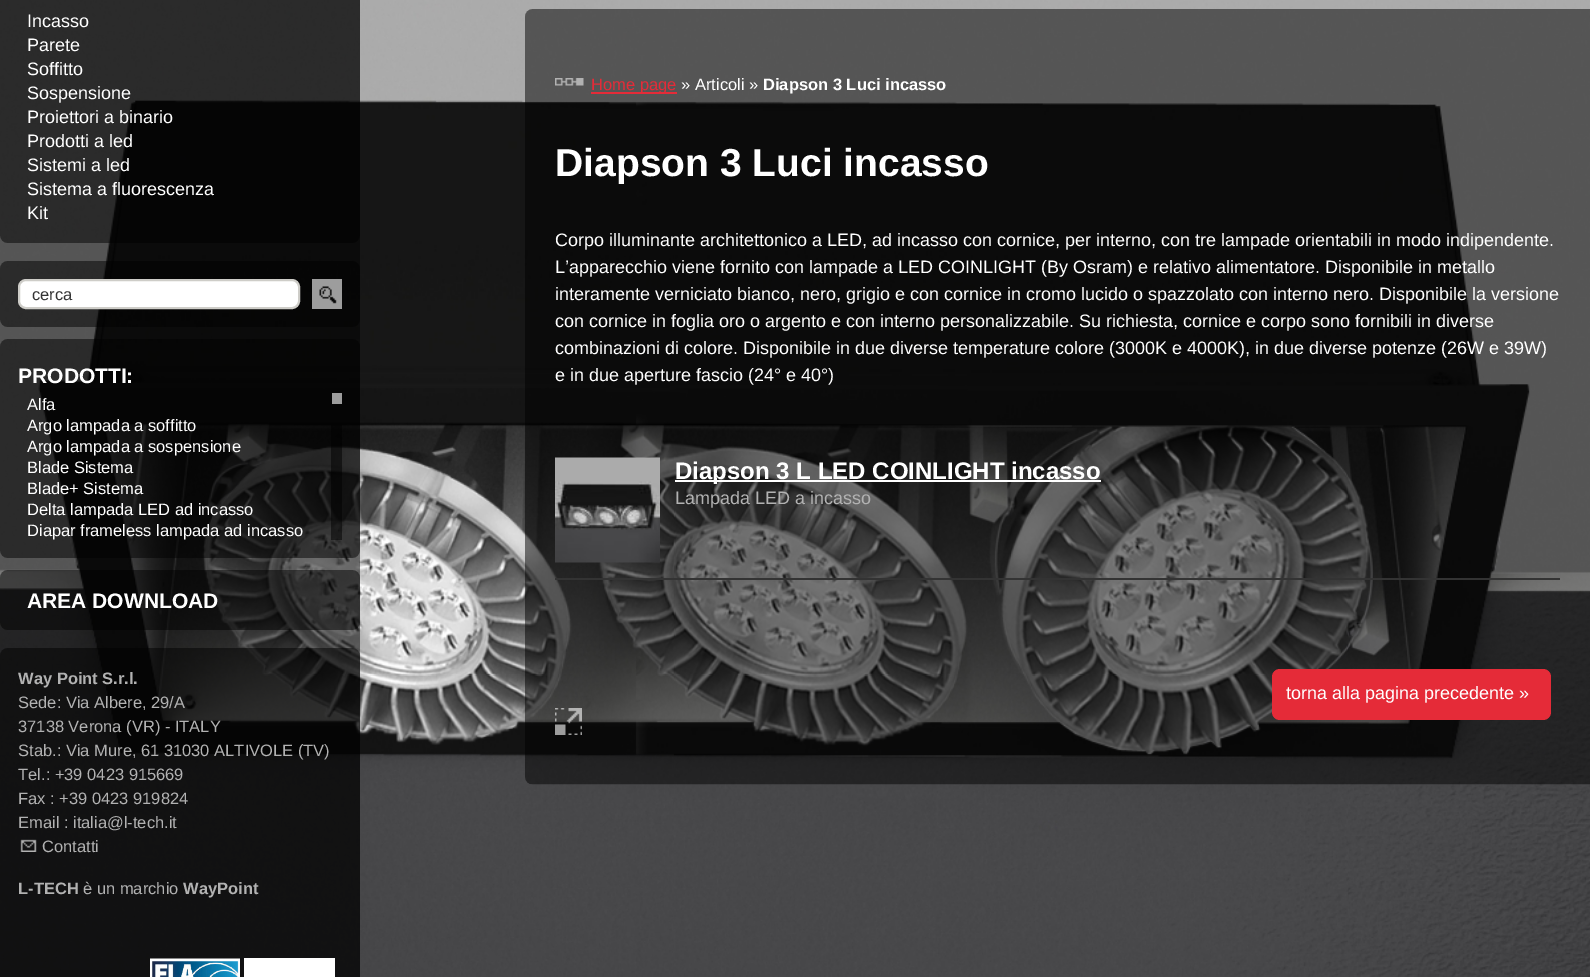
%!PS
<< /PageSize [1590 977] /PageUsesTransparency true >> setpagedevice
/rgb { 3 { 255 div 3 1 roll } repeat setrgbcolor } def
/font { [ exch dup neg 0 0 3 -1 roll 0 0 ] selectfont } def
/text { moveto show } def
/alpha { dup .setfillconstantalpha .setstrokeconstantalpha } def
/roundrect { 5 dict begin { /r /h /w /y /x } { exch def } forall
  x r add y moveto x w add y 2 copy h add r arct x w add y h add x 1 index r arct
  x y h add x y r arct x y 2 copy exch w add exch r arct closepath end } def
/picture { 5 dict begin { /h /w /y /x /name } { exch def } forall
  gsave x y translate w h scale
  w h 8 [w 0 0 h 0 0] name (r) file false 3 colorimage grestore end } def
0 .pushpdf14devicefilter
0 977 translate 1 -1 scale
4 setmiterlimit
255 255 255 rgb
0 0 1590 977 rectfill
(img_01.rgb) 0 0 1590 977 picture
0.5 alpha
0 0 0 rgb
0 0 360 977 rectfill
1 alpha
(img_02.rgb) 0 0 360 243 picture
(img_03.rgb) 0 261 360 66 picture
255 255 255 rgb
19 280 280 28 7 roundrect gsave fill grestore
206 205 200 rgb
2 setlinewidth
stroke
(img_04.rgb) 312 279 30 30 picture
(img_05.rgb) 0 339 360 219 picture
0.5 alpha
0 0 0 rgb
331 425 11 115 rectfill
1 alpha
157 157 157 rgb
332 393 10 11 rectfill
(img_06.rgb) 0 570 360 60 picture
(img_07.rgb) 0 648 360 329 picture
(img_08.rgb) 20 839 17 13 picture
(img_09.rgb) 150 958 90 19 picture
255 255 255 rgb
244 958 91 19 rectfill
(img_10.rgb) 525 9 1065 776 picture
(img_11.rgb) 555 78 29 8 picture
229 43 56 rgb
591 92 86 2 rectfill
51 51 51 rgb
555 578 1005 2 rectfill
(img_12.rgb) 555 457 105 106 picture
255 255 255 rgb
675 480 426 2 rectfill
229 43 56 rgb
1272 669 279 51 8 roundrect fill
(img_13.rgb) 555 708 27 27 picture
/LiberationSans-Regular 18 font
255 255 255 rgb
(Incasso) 27 27 text
(Parete) 27 51 text
(Soffitto) 27 75 text
(Sospensione) 27 99 text
(Proiettori a binario) 27 123 text
(Prodotti a led) 27 147 text
(Sistemi a led) 27 171 text
(Sistema a fluorescenza) 27 195 text
(Kit) 27 219 text
/LiberationSans-Regular 16.5 font
51 51 51 rgb
(cerca) 32 300 text
/LiberationSans-Bold 21 font
255 255 255 rgb
(PRODOTTI:) 18 383 text
/LiberationSans-Regular 16.5 font
(Alfa) 27 410 text
(Argo lampada a soffitto) 27 431 text
(Argo lampada a sospensione) 27 452 text
(Blade Sistema) 27 473 text
(Blade+ Sistema) 27 494 text
(Delta lampada LED ad incasso) 27 515 text
(Diapar frameless lampada ad incasso) 27 536 text
/LiberationSans-Bold 21 font
(AREA DOWNLOAD) 27 608 text
/LiberationSans-Bold 16.5 font
178 178 178 rgb
(Way Point S.r.l.) 18 684 text
/LiberationSans-Regular 16.5 font
(Sede: Via Albere, 29/A) 18 708 text
(37138 Verona \(VR\) - ITALY) 18 732 text
(Stab.: Via Mure, 61 31030 ALTIVOLE \(TV\)) 18 756 text
(Tel.: +39 0423 915669) 18 780 text
(Fax : +39 0423 919824) 18 804 text
(Email : italia@l-tech.it) 18 828 text
(Contatti) 42 852 text
/LiberationSans-Bold 16.5 font
(L-TECH) 18 894 text
/LiberationSans-Regular 16.5 font
(è un marchio) 83 894 text
/LiberationSans-Bold 16.5 font
(WayPoint) 183 894 text
/LiberationSans-Regular 16.5 font
229 43 56 rgb
(Home page) 591 90 text
255 255 255 rgb
(» Articoli ») 681 90 text
/LiberationSans-Bold 16.5 font
(Diapson 3 Luci incasso) 763 90 text
/LiberationSans-Bold 39 font
(Diapson 3 Luci incasso) 555 176 text
/LiberationSans-Regular 18 font
(Corpo illuminante architettonico a LED, ad incasso con cornice, per interno, con tre lampade orientabili in modo indipendente.) 555 246 text
(L’apparecchio viene fornito con lampade a LED COINLIGHT \(By Osram\) e relativo alimentatore. Disponibile in metallo) 555 273 text
(interamente verniciato bianco, nero, grigio e con cornice in cromo lucido o spazzolato con interno nero. Disponibile la versione) 555 300 text
(con cornice in foglia oro o argento e con interno personalizzabile. Su richiesta, cornice e corpo sono fornibili in diverse) 555 327 text
(combinazioni di colore. Disponibile in due diverse temperature colore \(3000K e 4000K\), in due diverse potenze \(26W e 39W\)) 555 354 text
(e in due aperture fascio \(24° e 40°\)) 555 381 text
/LiberationSans-Bold 24 font
(Diapson 3 L LED COINLIGHT incasso) 675 479 text
/LiberationSans-Regular 18 font
178 178 178 rgb
(Lampada LED a incasso) 675 504 text
255 255 255 rgb
(torna alla pagina precedente ») 1286 699 text
.poppdf14devicefilter showpage
